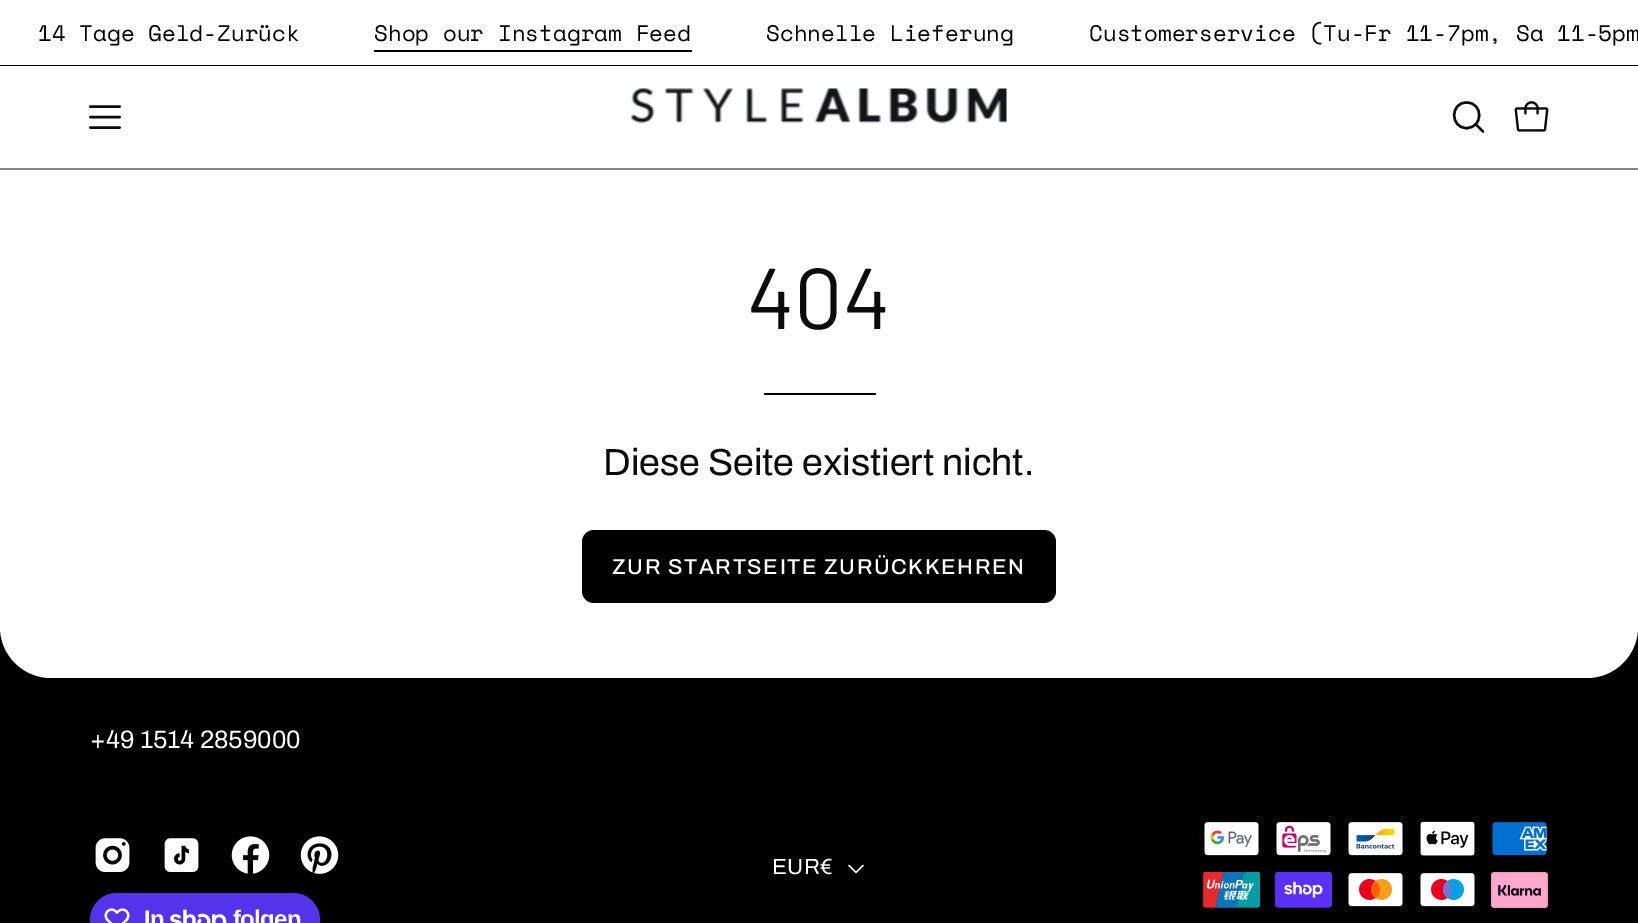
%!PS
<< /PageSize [1638 923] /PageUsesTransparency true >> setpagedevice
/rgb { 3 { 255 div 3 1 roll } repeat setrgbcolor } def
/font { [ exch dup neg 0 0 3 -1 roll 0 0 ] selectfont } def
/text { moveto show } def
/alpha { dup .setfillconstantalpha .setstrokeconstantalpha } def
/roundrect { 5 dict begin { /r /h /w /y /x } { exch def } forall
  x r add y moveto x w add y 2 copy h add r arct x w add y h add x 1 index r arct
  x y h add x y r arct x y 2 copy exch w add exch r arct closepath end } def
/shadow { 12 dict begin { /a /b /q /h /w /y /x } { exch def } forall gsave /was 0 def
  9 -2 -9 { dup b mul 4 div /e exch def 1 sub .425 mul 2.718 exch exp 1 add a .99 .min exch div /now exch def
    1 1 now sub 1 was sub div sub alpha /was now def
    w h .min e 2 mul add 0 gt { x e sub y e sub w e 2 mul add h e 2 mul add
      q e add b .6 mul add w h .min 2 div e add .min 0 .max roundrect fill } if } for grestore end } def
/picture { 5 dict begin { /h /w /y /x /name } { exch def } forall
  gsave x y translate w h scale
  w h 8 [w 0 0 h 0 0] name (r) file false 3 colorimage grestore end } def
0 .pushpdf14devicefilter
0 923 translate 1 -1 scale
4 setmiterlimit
255 255 255 rgb
0 0 1638 923 rectfill
0 0 0 rgb
0 65 1638 1 rectfill
374 50 318 2 rectfill
11 11 11 rgb
2.6 setlinewidth
1 setlinecap
1 setlinejoin
90.5 117 moveto 29 0 rlineto 90.5 106.5 moveto 29 0 rlineto 90.5 127.5 moveto 29 0 rlineto stroke
(img_01.rgb) 631 88 376 36 picture
2.4 setlinewidth
1466.5 128 moveto 17 0 17 -25.5 0 -25.5 rcurveto -16.5 0 -16.5 25.5 0 25.5 rcurveto closepath 1475.5 124 moveto 7.5 7.5 rlineto stroke
(img_02.rgb) 1514 101 35 31 picture
0 0 0 rgb
0 627 1638 296 rectfill
15 221 1608 480 36 19 1 shadow
255 255 255 rgb
0 168 moveto 1638 0 rlineto 0 459 rlineto 0 28 -23 51 -51 51 rcurveto -1536 0 rlineto -28 0 -51 -23 -51 -51 rcurveto closepath fill
133 133 133 rgb
0 168 1638 2 rectfill
0 0 0 rgb
764 393 112 2 rectfill
582 530 474 73 12 roundrect fill
255 255 255 rgb
1.4 setlinewidth
863 865.5 moveto -7 7 rlineto -7 -7 rlineto stroke
(img_03.rgb) 1204 822 55 34 picture
(img_04.rgb) 1276 822 55 34 picture
(img_05.rgb) 1348 822 55 34 picture
(img_06.rgb) 1420 821 55 35 picture
(img_07.rgb) 1492 822 55 34 picture
(img_08.rgb) 1203 872 57 36 picture
(img_09.rgb) 1275 872 57 36 picture
(img_10.rgb) 1348 873 55 34 picture
(img_11.rgb) 1420 873 55 34 picture
(img_12.rgb) 1491 872 57 36 picture
(img_13.rgb) 95 838 35 34 picture
(img_14.rgb) 164 838 35 34 picture
(img_15.rgb) 231 836 39 38 picture
(img_16.rgb) 300 836 39 38 picture
84 51 235 rgb
90 893 230 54 27 roundrect fill
(img_17.rgb) 104 908 26 15 picture
(img_18.rgb) 170 909 57 14 picture
/SpaceMono-Regular 22.5 font
0 0 0 rgb
(14 Tage Geld-Zurück) 38 41 text
(Shop our Instagram Feed) 374 41 text
(Schnelle Lieferung) 766 41 text
(Customerservice \(Tu-Fr 11-7pm, Sa 11-5pm) 1089 41 text
/Barlow-Regular 86 font
11 11 11 rgb
(404) 747 329 text
/Archivo-Regular 37.75 font
(Diese Seite existiert nicht.) 603 475 text
/Archivo-Medium 21.6 font
255 255 255 rgb
612 574 moveto 1.6 0 (ZUR STARTSEITE ZURÜCKKEHREN) ashow
/Archivo-Regular 25.25 font
(+49 1514 2859000) 90 748 text
/Archivo-Regular 22 font
772 874 moveto 0.5 0 (EUR€) ashow
/LiberationSans-Bold 24 font
144 927 moveto -0.75 0 (In) ashow
233 927 moveto -0.75 0 (folgen) ashow
.poppdf14devicefilter showpage
